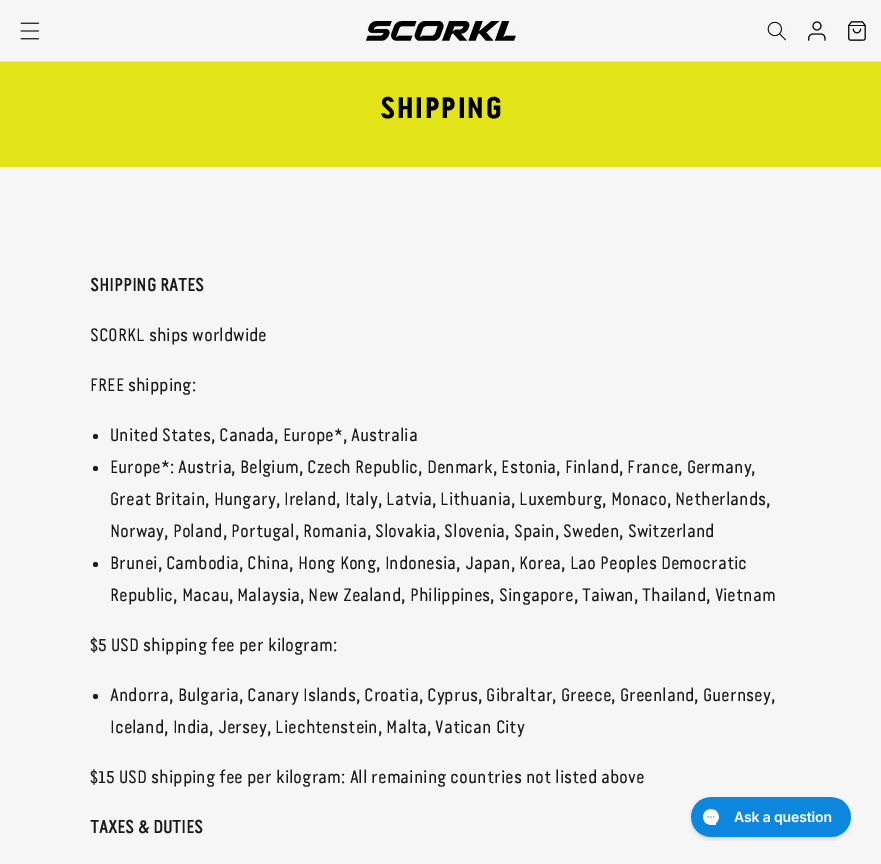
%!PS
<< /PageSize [881 864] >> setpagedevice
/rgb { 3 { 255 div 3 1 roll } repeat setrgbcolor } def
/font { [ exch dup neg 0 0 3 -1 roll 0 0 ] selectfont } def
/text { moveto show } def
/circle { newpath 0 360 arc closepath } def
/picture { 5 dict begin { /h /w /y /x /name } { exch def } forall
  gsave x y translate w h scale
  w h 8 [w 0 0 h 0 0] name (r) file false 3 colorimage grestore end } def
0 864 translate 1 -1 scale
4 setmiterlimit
246 246 246 rgb
0 0 881 864 rectfill
225 225 225 rgb
0 61 881 1 rectfill
(img_01.rgb) 20 22 20 18 picture
(img_02.rgb) 366 21 150 20 picture
(img_03.rgb) 767 21 19 20 picture
(img_04.rgb) 808 21 18 20 picture
(img_05.rgb) 848 21 18 20 picture
226 227 25 rgb
0 62 881 105 rectfill
28 27 27 rgb
95.5 436.5 2.5 circle fill
95.5 468.5 2.5 circle fill
95.5 564.5 2.5 circle fill
95.5 696.5 2.5 circle fill
(img_06.rgb) 689 797 164 44 picture
/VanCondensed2-Bold 30 font
0 0 0 rgb
(SHIPPING) 380 118 text
/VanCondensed-Bold 18 font
28 27 27 rgb
(SHIPPING RATES) 90 291 text
/VanCondensed-Regular 18 font
(SCORKL ships worldwide) 90 341 text
(FREE shipping:) 90 391 text
(United States, Canada, Europe*, Australia) 110 441 text
(Europe*: Austria, Belgium, Czech Republic, Denmark, Estonia, Finland, France, Germany,) 110 473 text
(Great Britain, Hungary, Ireland, Italy, Latvia, Lithuania, Luxemburg, Monaco, Netherlands,) 110 505 text
(Norway, Poland, Portugal, Romania, Slovakia, Slovenia, Spain, Sweden, Switzerland) 110 537 text
(Brunei, Cambodia, China, Hong Kong, Indonesia, Japan, Korea, Lao Peoples Democratic) 110 569 text
(Republic, Macau, Malaysia, New Zealand, Philippines, Singapore, Taiwan, Thailand, Vietnam) 110 601 text
($5 USD shipping fee per kilogram:) 90 651 text
(Andorra, Bulgaria, Canary Islands, Croatia, Cyprus, Gibraltar, Greece, Greenland, Guernsey,) 110 701 text
(Iceland, India, Jersey, Liechtenstein, Malta, Vatican City) 110 733 text
($15 USD shipping fee per kilogram: All remaining countries not listed above) 90 783 text
/VanCondensed-Bold 18 font
(TAXES & DUTIES) 90 833 text
showpage
